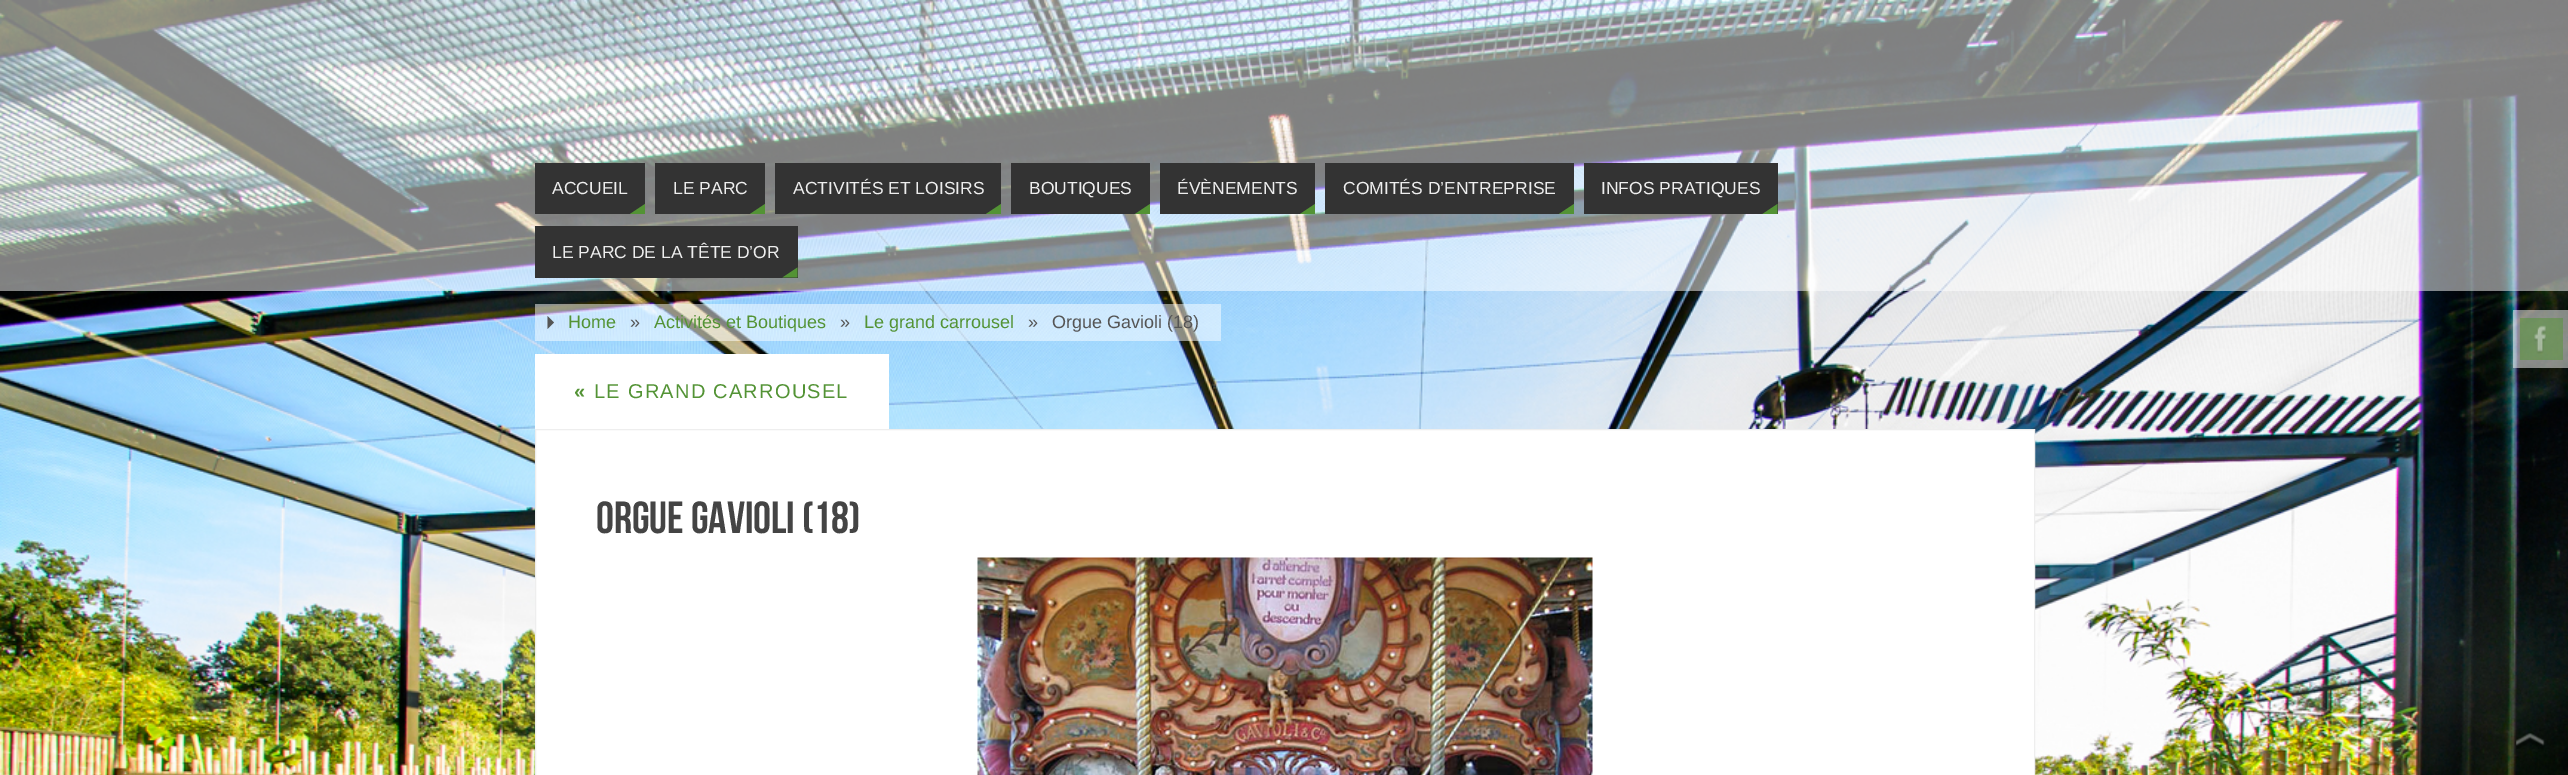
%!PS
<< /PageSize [2568 775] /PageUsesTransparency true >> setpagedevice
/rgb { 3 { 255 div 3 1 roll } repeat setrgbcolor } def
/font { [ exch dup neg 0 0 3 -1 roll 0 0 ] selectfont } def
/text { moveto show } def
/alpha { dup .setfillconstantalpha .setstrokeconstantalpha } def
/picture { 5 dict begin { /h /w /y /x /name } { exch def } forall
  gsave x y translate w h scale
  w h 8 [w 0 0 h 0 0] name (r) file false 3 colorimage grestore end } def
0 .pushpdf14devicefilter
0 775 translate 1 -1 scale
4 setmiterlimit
255 255 255 rgb
0 0 2568 775 rectfill
(img_01.rgb) 0 0 2568 775 picture
0.5 alpha
0 0 2568 291 rectfill
1 alpha
51 51 51 rgb
535 163 110 51 rectfill
83 147 53 rgb
645 214 moveto -15 0 rlineto 15 -10 rlineto closepath fill
51 51 51 rgb
655 163 110 51 rectfill
83 147 53 rgb
765 214 moveto -15 0 rlineto 15 -10 rlineto closepath fill
51 51 51 rgb
775 163 226 51 rectfill
83 147 53 rgb
1001 214 moveto -15 0 rlineto 15 -10 rlineto closepath fill
51 51 51 rgb
1011 163 139 51 rectfill
83 147 53 rgb
1150 214 moveto -15 0 rlineto 15 -10 rlineto closepath fill
51 51 51 rgb
1160 163 155 51 rectfill
83 147 53 rgb
1315 214 moveto -15 0 rlineto 15 -10 rlineto closepath fill
51 51 51 rgb
1325 163 249 51 rectfill
83 147 53 rgb
1574 214 moveto -15 0 rlineto 15 -10 rlineto closepath fill
51 51 51 rgb
1584 163 194 51 rectfill
83 147 53 rgb
1777.5 214 moveto -15 0 rlineto 15 -10 rlineto closepath fill
51 51 51 rgb
535 226 263 52 rectfill
83 147 53 rgb
797.5 277.5 moveto -15 0 rlineto 15 -10 rlineto closepath fill
0.5 alpha
255 255 255 rgb
535 304 686 37 rectfill
1 alpha
85 85 85 rgb
547.5 329 moveto 0 -13 rlineto 6.5 6.5 rlineto closepath fill
255 255 255 rgb
535 354 354 75 rectfill
535.5 429.5 moveto 1499 0 rlineto 0 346 rlineto -1499 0 rlineto closepath gsave fill grestore
238 238 238 rgb
stroke
(img_02.rgb) 977 557 616 218 picture
0.5 alpha
255 255 255 rgb
2513 310 55 58 rectfill
83 147 53 rgb
2520 318 43 42 rectfill
1 alpha
(img_03.rgb) 2534 325 12 29 picture
(img_04.rgb) 2516 733 29 16 picture
/LiberationSans-Regular 17.5 font
238 238 238 rgb
(ACCUEIL) 552 194 text
(LE PARC) 673 194 text
(ACTIVITÉS ET LOISIRS) 793 194 text
(BOUTIQUES) 1029 194 text
(ÉVÈNEMENTS) 1177 194 text
(COMITÉS D’ENTREPRISE) 1343 194 text
(INFOS PRATIQUES) 1601 194 text
(LE PARC DE LA TÊTE D’OR) 552 258 text
/LiberationSans-Regular 18 font
83 147 53 rgb
(Home) 568 328 text
85 85 85 rgb
(») 630 328 text
83 147 53 rgb
(Activités et Boutiques) 654 328 text
85 85 85 rgb
(») 840 328 text
83 147 53 rgb
(Le grand carrousel) 864 328 text
85 85 85 rgb
(») 1028 328 text
(Orgue Gavioli \(18\)) 1052 328 text
/LiberationSans-Bold 20 font
83 147 53 rgb
574 398 moveto 1.25 0 («) ashow
/LiberationSans-Regular 20 font
594 398 moveto 1.25 0 (LE GRAND CARROUSEL) ashow
/BebasNeue-Regular 45 font
68 68 68 rgb
(Orgue Gavioli \(18\)) 596 533 text
.poppdf14devicefilter showpage
